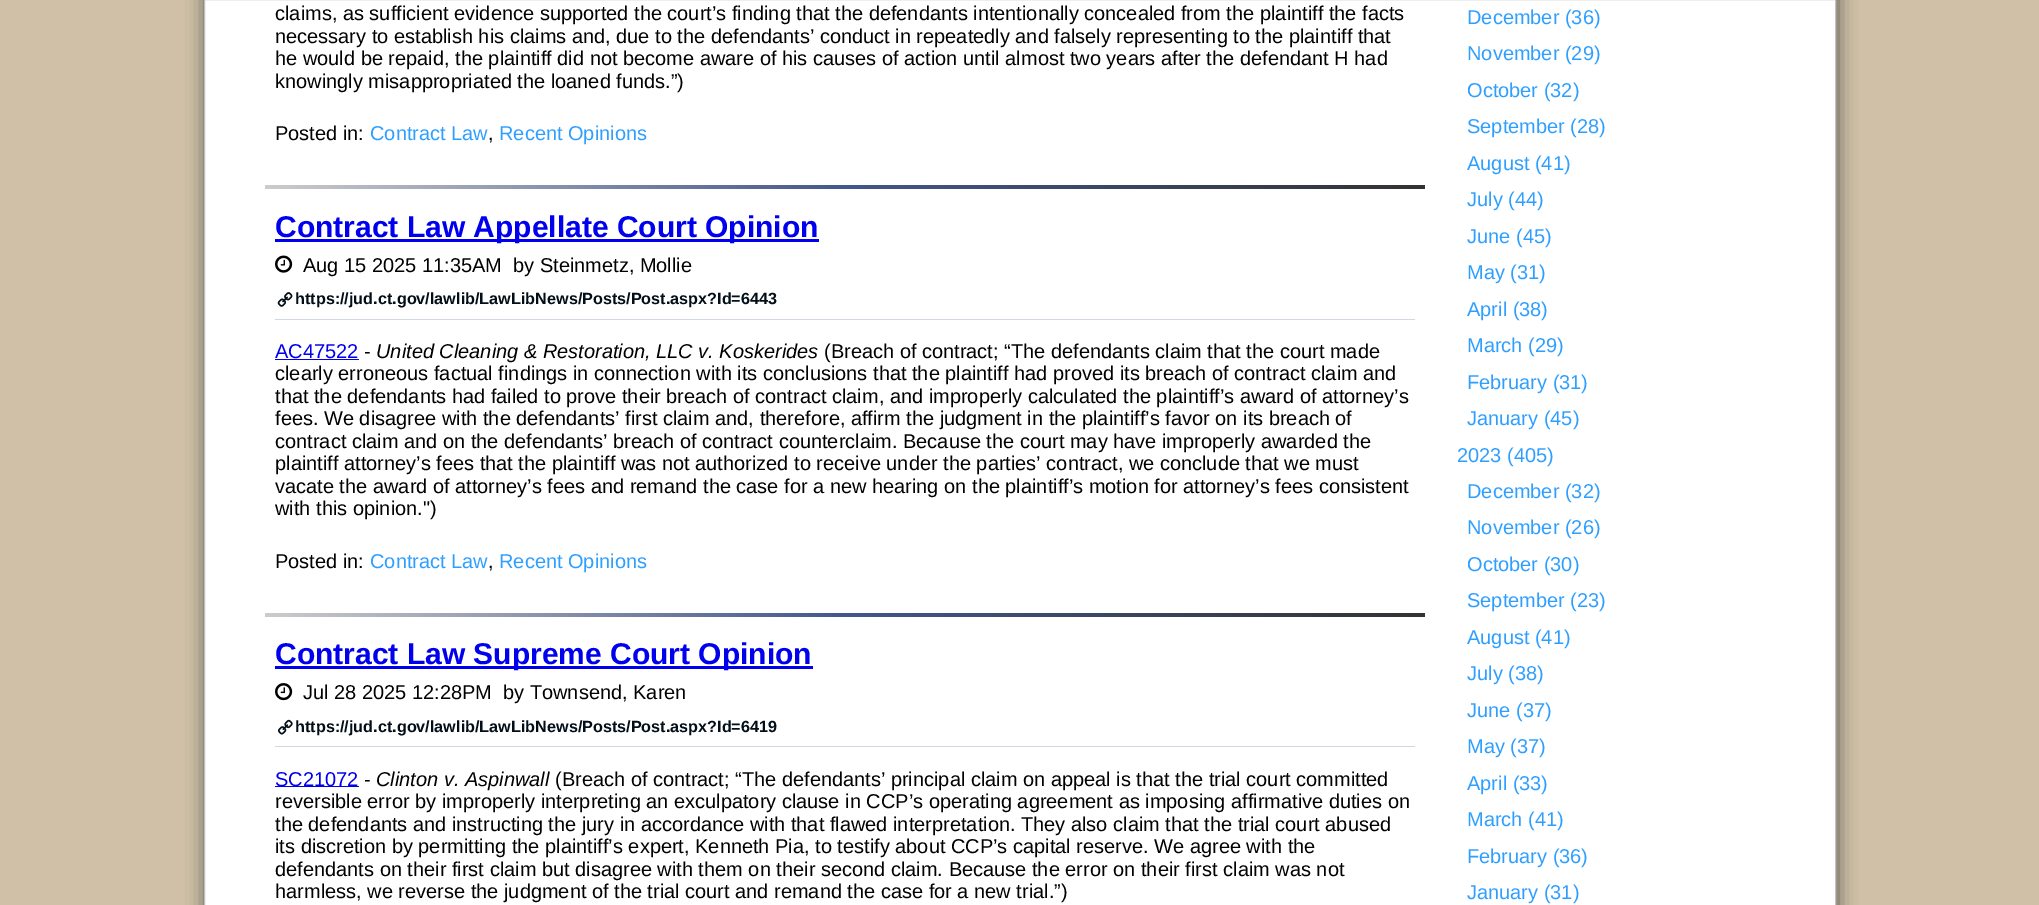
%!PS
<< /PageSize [2039 905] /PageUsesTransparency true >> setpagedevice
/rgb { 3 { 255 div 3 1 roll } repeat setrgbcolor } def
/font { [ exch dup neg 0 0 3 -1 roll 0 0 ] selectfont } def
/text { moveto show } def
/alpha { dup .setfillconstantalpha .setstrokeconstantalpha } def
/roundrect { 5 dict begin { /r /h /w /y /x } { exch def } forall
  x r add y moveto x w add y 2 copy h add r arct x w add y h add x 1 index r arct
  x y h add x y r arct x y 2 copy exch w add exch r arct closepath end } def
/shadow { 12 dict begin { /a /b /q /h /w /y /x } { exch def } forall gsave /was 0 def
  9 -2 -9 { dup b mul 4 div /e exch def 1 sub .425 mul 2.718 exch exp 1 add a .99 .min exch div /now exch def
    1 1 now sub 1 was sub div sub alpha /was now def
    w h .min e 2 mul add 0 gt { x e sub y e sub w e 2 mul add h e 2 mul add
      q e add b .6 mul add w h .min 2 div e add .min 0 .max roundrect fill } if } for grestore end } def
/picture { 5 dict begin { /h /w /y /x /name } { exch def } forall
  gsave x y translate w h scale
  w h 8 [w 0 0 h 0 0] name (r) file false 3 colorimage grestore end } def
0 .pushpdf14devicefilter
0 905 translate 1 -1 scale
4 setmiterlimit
207 192 167 rgb
0 0 2039 905 rectfill
50 50 50 rgb
205 -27 1633 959 0 9 0.75 shadow
255 255 255 rgb
204.5 -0.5 moveto 1631 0 rlineto 0 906 rlineto -1631 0 rlineto closepath gsave fill grestore
192 192 192 rgb
stroke
gsave 265 185 moveto 1160 0 rlineto 0 4 rlineto -1160 0 rlineto closepath clip newpath
<< /ShadingType 2 /ColorSpace /DeviceRGB /Coords [265 187 1425 187] /Extend [true true] /Function << /FunctionType 3 /Domain [0 1] /Functions [<< /FunctionType 2 /Domain [0 1] /C0 [0.8 0.8 0.8] /C1 [0.263 0.341 0.549] /N 1 >> << /FunctionType 2 /Domain [0 1] /C0 [0.263 0.341 0.549] /C1 [0.2 0.2 0.2] /N 1 >>] /Bounds [0.5] /Encode [0 1 0 1] >> >> shfill grestore
210 215 228 rgb
275 319 1140 1 rectfill
0 0 238 rgb
275 239 544 3 rectfill
(img_01.rgb) 275 255 18 18 picture
(img_02.rgb) 277 292 16 15 picture
275 359 84 1 rectfill
gsave 265 613 moveto 1160 0 rlineto 0 4 rlineto -1160 0 rlineto closepath clip newpath
<< /ShadingType 2 /ColorSpace /DeviceRGB /Coords [265 614 1425 614] /Extend [true true] /Function << /FunctionType 3 /Domain [0 1] /Functions [<< /FunctionType 2 /Domain [0 1] /C0 [0.8 0.8 0.8] /C1 [0.263 0.341 0.549] /N 1 >> << /FunctionType 2 /Domain [0 1] /C0 [0.263 0.341 0.549] /C1 [0.2 0.2 0.2] /N 1 >>] /Bounds [0.5] /Encode [0 1 0 1] >> >> shfill grestore
210 215 228 rgb
275 746 1140 1 rectfill
0 0 238 rgb
275 666 538 3 rectfill
(img_03.rgb) 275 683 18 18 picture
(img_04.rgb) 278 719 15 16 picture
275 786 84 1 rectfill
/LiberationSans-Regular 20 font
0 0 0 rgb
(claims, as sufficient evidence supported the court’s finding that the defendants intentionally concealed from the plaintiff the facts) 275 20 text
(necessary to establish his claims and, due to the defendants’ conduct in repeatedly and falsely representing to the plaintiff that) 275 43 text
(he would be repaid, the plaintiff did not become aware of his causes of action until almost two years after the defendant H had) 275 65 text
(knowingly misappropriated the loaned funds.”\)) 275 88 text
(Posted in:) 275 140 text
46 159 255 rgb
(Contract Law) 370 140 text
0 0 0 rgb
(,) 488 140 text
46 159 255 rgb
(Recent Opinions) 499 140 text
/LiberationSans-Bold 30 font
0 0 238 rgb
(Contract Law Appellate Court Opinion) 275 237 text
/LiberationSans-Regular 20 font
0 0 0 rgb
(Aug 15 2025 11:35AM) 303 272 text
(by Steinmetz, Mollie) 513 272 text
/LiberationSans-Bold 16.2 font
2 14 24 rgb
(https://jud.ct.gov/lawlib/LawLibNews/Posts/Post.aspx?Id=6443) 295 304 text
/LiberationSans-Regular 20 font
0 0 238 rgb
(AC47522) 275 358 text
0 0 0 rgb
(-) 364 358 text
/LiberationSans-Italic 20 font
(United Cleaning & Restoration, LLC v. Koskerides) 376 358 text
/LiberationSans-Regular 20 font
(\(Breach of contract; “The defendants claim that the court made) 824 358 text
(clearly erroneous factual findings in connection with its conclusions that the plaintiff had proved its breach of contract claim and) 275 380 text
(that the defendants had failed to prove their breach of contract claim, and improperly calculated the plaintiff’s award of attorney’s) 275 403 text
(fees. We disagree with the defendants’ first claim and, therefore, affirm the judgment in the plaintiff’s favor on its breach of) 275 425 text
(contract claim and on the defendants’ breach of contract counterclaim. Because the court may have improperly awarded the) 275 448 text
(plaintiff attorney’s fees that the plaintiff was not authorized to receive under the parties’ contract, we conclude that we must) 275 470 text
(vacate the award of attorney’s fees and remand the case for a new hearing on the plaintiff’s motion for attorney’s fees consistent) 275 493 text
(with this opinion."\)) 275 515 text
(Posted in:) 275 568 text
46 159 255 rgb
(Contract Law) 370 568 text
0 0 0 rgb
(,) 488 568 text
46 159 255 rgb
(Recent Opinions) 499 568 text
/LiberationSans-Bold 30 font
0 0 238 rgb
(Contract Law Supreme Court Opinion) 275 664 text
/LiberationSans-Regular 20 font
0 0 0 rgb
(Jul 28 2025 12:28PM) 303 699 text
(by Townsend, Karen) 503 699 text
/LiberationSans-Bold 16.2 font
2 14 24 rgb
(https://jud.ct.gov/lawlib/LawLibNews/Posts/Post.aspx?Id=6419) 295 732 text
/LiberationSans-Regular 20 font
0 0 238 rgb
(SC21072) 275 786 text
0 0 0 rgb
(-) 364 786 text
/LiberationSans-Italic 20 font
(Clinton v. Aspinwall) 376 786 text
/LiberationSans-Regular 20 font
(\(Breach of contract; “The defendants’ principal claim on appeal is that the trial court committed) 555 786 text
(reversible error by improperly interpreting an exculpatory clause in CCP’s operating agreement as imposing affirmative duties on) 275 808 text
(the defendants and instructing the jury in accordance with that flawed interpretation. They also claim that the trial court abused) 275 831 text
(its discretion by permitting the plaintiff’s expert, Kenneth Pia, to testify about CCP’s capital reserve. We agree with the) 275 853 text
(defendants on their first claim but disagree with them on their second claim. Because the error on their first claim was not) 275 876 text
(harmless, we reverse the judgment of the trial court and remand the case for a new trial.”\)) 275 898 text
46 159 255 rgb
(December \(36\)) 1467 24 text
(November \(29\)) 1467 60 text
(October \(32\)) 1467 97 text
(September \(28\)) 1467 133 text
(August \(41\)) 1467 170 text
(July \(44\)) 1467 206 text
(June \(45\)) 1467 243 text
(May \(31\)) 1467 279 text
(April \(38\)) 1467 316 text
(March \(29\)) 1467 352 text
(February \(31\)) 1467 389 text
(January \(45\)) 1467 425 text
(2023 \(405\)) 1457 462 text
(December \(32\)) 1467 498 text
(November \(26\)) 1467 534 text
(October \(30\)) 1467 571 text
(September \(23\)) 1467 607 text
(August \(41\)) 1467 644 text
(July \(38\)) 1467 680 text
(June \(37\)) 1467 717 text
(May \(37\)) 1467 753 text
(April \(33\)) 1467 790 text
(March \(41\)) 1467 826 text
(February \(36\)) 1467 863 text
(January \(31\)) 1467 899 text
.poppdf14devicefilter showpage
